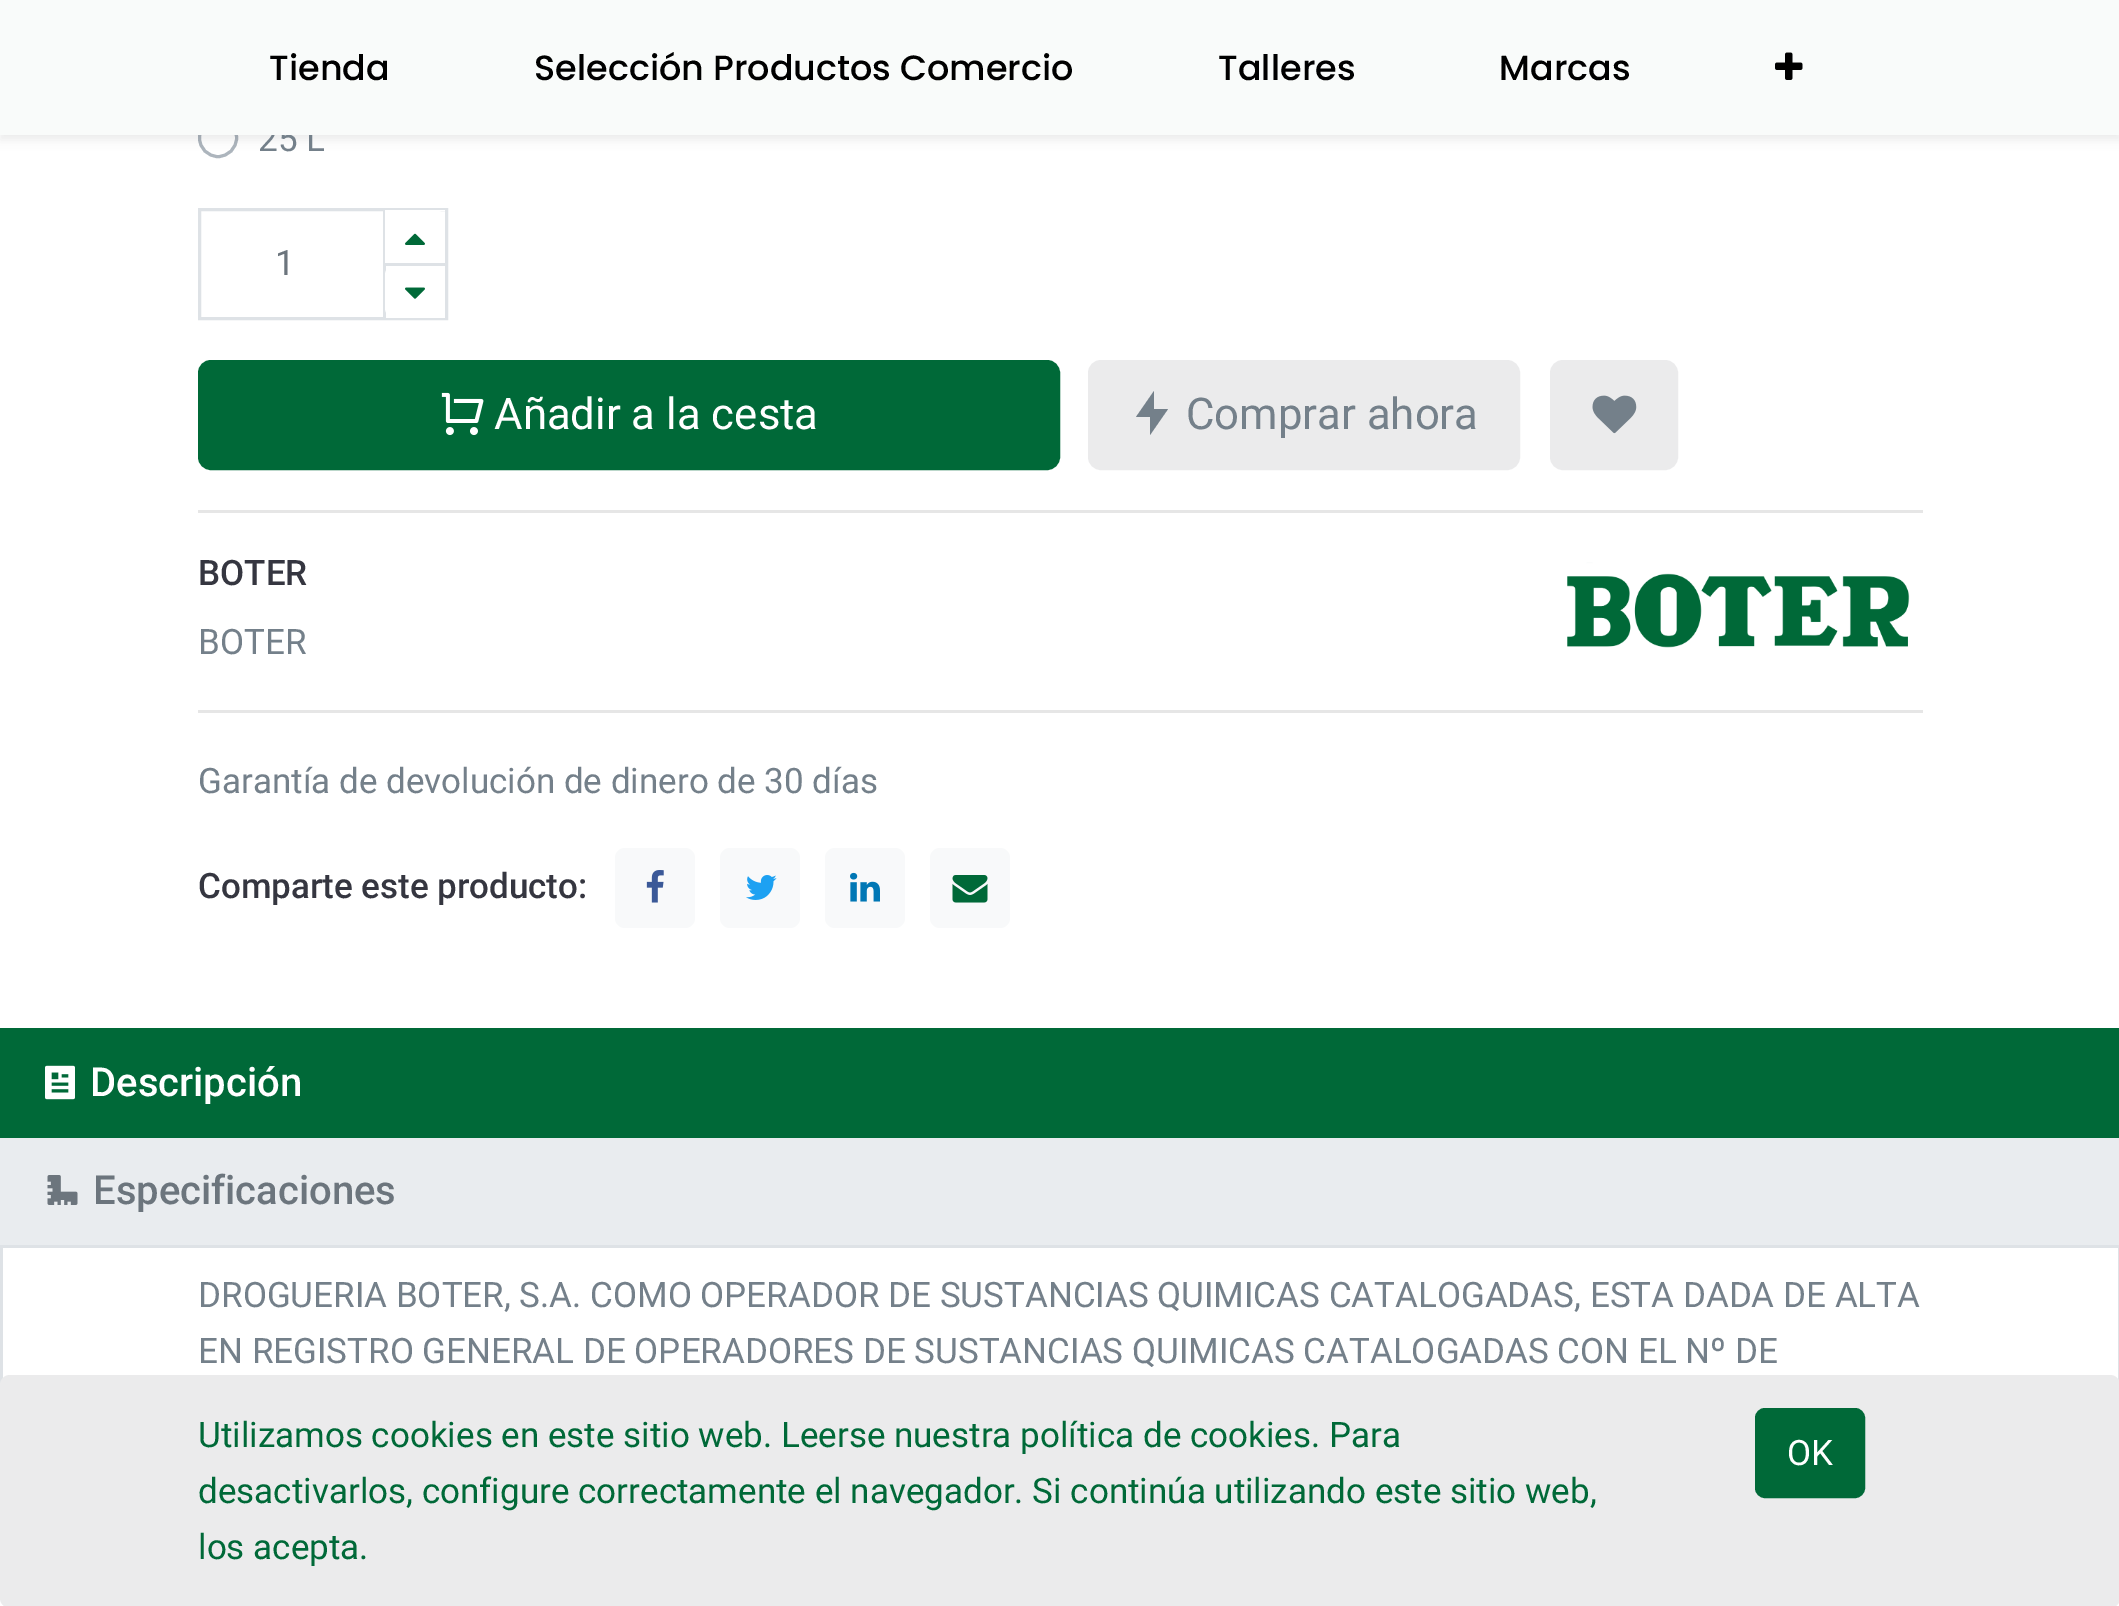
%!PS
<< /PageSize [2119 1606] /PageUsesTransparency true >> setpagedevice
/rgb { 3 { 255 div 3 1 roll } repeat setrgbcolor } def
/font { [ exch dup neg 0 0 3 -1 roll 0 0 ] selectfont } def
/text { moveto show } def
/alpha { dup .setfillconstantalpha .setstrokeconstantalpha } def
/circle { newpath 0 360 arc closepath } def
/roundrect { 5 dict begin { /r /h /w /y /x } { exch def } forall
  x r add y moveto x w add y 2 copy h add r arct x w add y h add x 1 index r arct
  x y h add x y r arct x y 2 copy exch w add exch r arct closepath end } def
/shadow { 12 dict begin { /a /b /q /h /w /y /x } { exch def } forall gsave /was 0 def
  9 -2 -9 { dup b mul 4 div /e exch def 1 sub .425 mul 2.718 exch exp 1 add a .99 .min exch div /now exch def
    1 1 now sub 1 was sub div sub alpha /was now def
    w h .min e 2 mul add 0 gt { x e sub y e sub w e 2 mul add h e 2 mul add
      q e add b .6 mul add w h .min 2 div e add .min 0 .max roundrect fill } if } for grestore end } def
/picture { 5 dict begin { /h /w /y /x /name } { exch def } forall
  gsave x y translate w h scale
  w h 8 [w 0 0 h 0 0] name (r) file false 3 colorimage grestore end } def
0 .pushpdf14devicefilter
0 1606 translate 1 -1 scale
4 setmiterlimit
255 255 255 rgb
0 0 2119 1606 rectfill
173 181 189 rgb
3 setlinewidth
218 138 18.5 circle stroke
0 0 0 rgb
0 5 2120 135 0 5 0.07 shadow
222 226 230 rgb
199.5 209.5 247 109 rectstroke
255 255 255 rgb
435 210 10 1 rectfill
222 226 230 rgb
383 263 3 55 rectfill
255 255 255 rgb
386 317 9 1 rectfill
395 265 moveto 50 0 rlineto 0 53 rlineto -50 0 rlineto -5.5 0 -10 -4.5 -10 -10 rcurveto 0 -33 rlineto 0 -5.5 4.5 -10 10 -10 rcurveto closepath fill
222 226 230 rgb
383 263 62 3 rectfill
383 210 3 55 rectfill
255 255 255 rgb
385 210 moveto 50 0 rlineto 5.5 0 10 4.5 10 10 rcurveto 0 33 rlineto 0 5.5 -4.5 10 -10 10 rcurveto -50 0 rlineto closepath fill
(img_02.rgb) 405 233 20 12 picture
(img_03.rgb) 405 287 20 12 picture
0 105 56 rgb
199.5 361.5 859 107 11.5 roundrect gsave fill grestore
stroke
(img_04.rgb) 441 392 43 44 picture
235 235 236 rgb
1089.5 361.5 429 107 11.5 roundrect gsave fill grestore
stroke
116 128 138 rgb
1154 409 moveto 14 0 rlineto -18 26 rlineto 0 -18 rlineto -14 0 rlineto 18 -26 rlineto closepath fill
235 235 236 rgb
1551.5 361.5 125 107 11.5 roundrect gsave fill grestore
stroke
(img_05.rgb) 1592 395 45 39 picture
230 230 230 rgb
198 510 1725 3 rectfill
(img_06.rgb) 1567 562 343 86 picture
198 710 1725 3 rectfill
248 249 250 rgb
615 848 80 80 10 roundrect fill
(img_07.rgb) 646 870 18 33 picture
720 848 80 80 10 roundrect fill
(img_08.rgb) 746 875 31 25 picture
825 848 80 80 10 roundrect fill
(img_09.rgb) 850 872 30 30 picture
930 848 80 80 10 roundrect fill
(img_10.rgb) 952 875 36 28 picture
233 236 239 rgb
0 1138 2119 107 rectfill
222 226 230 rgb
0 1245 2119 3 rectfill
0 105 56 rgb
0 1028 2119 110 rectfill
(img_11.rgb) 45 1065 30 35 picture
(img_12.rgb) 47 1175 31 30 picture
222 226 230 rgb
2118 1248 1 133 rectfill
0 1248 3 137 rectfill
235 235 236 rgb
0 1375 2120 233 10 roundrect fill
0 105 56 rgb
1756.5 1409.5 107 87 8.5 roundrect gsave fill grestore
stroke
/Roboto-Regular 35 font
116 128 138 rgb
(25 L) 258 151 text
249 251 250 rgb
0 0 2119 135 rectfill
(img_01.rgb) 1775 52 28 28 picture
/Poppins-Medium 35 font
0 0 0 rgb
(Marcas) 1499 80 text
(Talleres) 1218 80 text
(Selección Productos Comercio) 534 80 text
(Tienda) 269 80 text
/Roboto-Regular 35 font
108 117 125 rgb
(1) 275 275 text
/Roboto-Regular 43.75 font
255 255 255 rgb
(Añadir a la cesta) 494 429 text
116 128 138 rgb
(Comprar ahora) 1186 429 text
/Roboto-Medium 35 font
53 54 64 rgb
(BOTER) 198 585 text
/Roboto-Regular 35 font
116 128 138 rgb
(BOTER) 198 654 text
(Garantía de devolución de dinero de 30 días) 198 793 text
/Roboto-Medium 35 font
53 54 64 rgb
(Comparte este producto:) 198 898 text
/Roboto-Medium 40 font
255 255 255 rgb
(Descripción) 90 1096 text
108 117 125 rgb
(Especificaciones) 93 1204 text
/Roboto-Regular 35 font
116 128 138 rgb
(DROGUERIA BOTER, S.A. COMO OPERADOR DE SUSTANCIAS QUIMICAS CATALOGADAS, ESTA DADA DE ALTA) 198 1307 text
(EN REGISTRO GENERAL DE OPERADORES DE SUSTANCIAS QUIMICAS CATALOGADAS CON EL Nº DE) 198 1363 text
0 105 56 rgb
(Utilizamos cookies en este sitio web. Leerse nuestra política de cookies. Para) 198 1447 text
(desactivarlos, configure correctamente el navegador. Si continúa utilizando este sitio web,) 198 1503 text
(los acepta.) 198 1559 text
255 255 255 rgb
(OK) 1787 1465 text
.poppdf14devicefilter showpage
